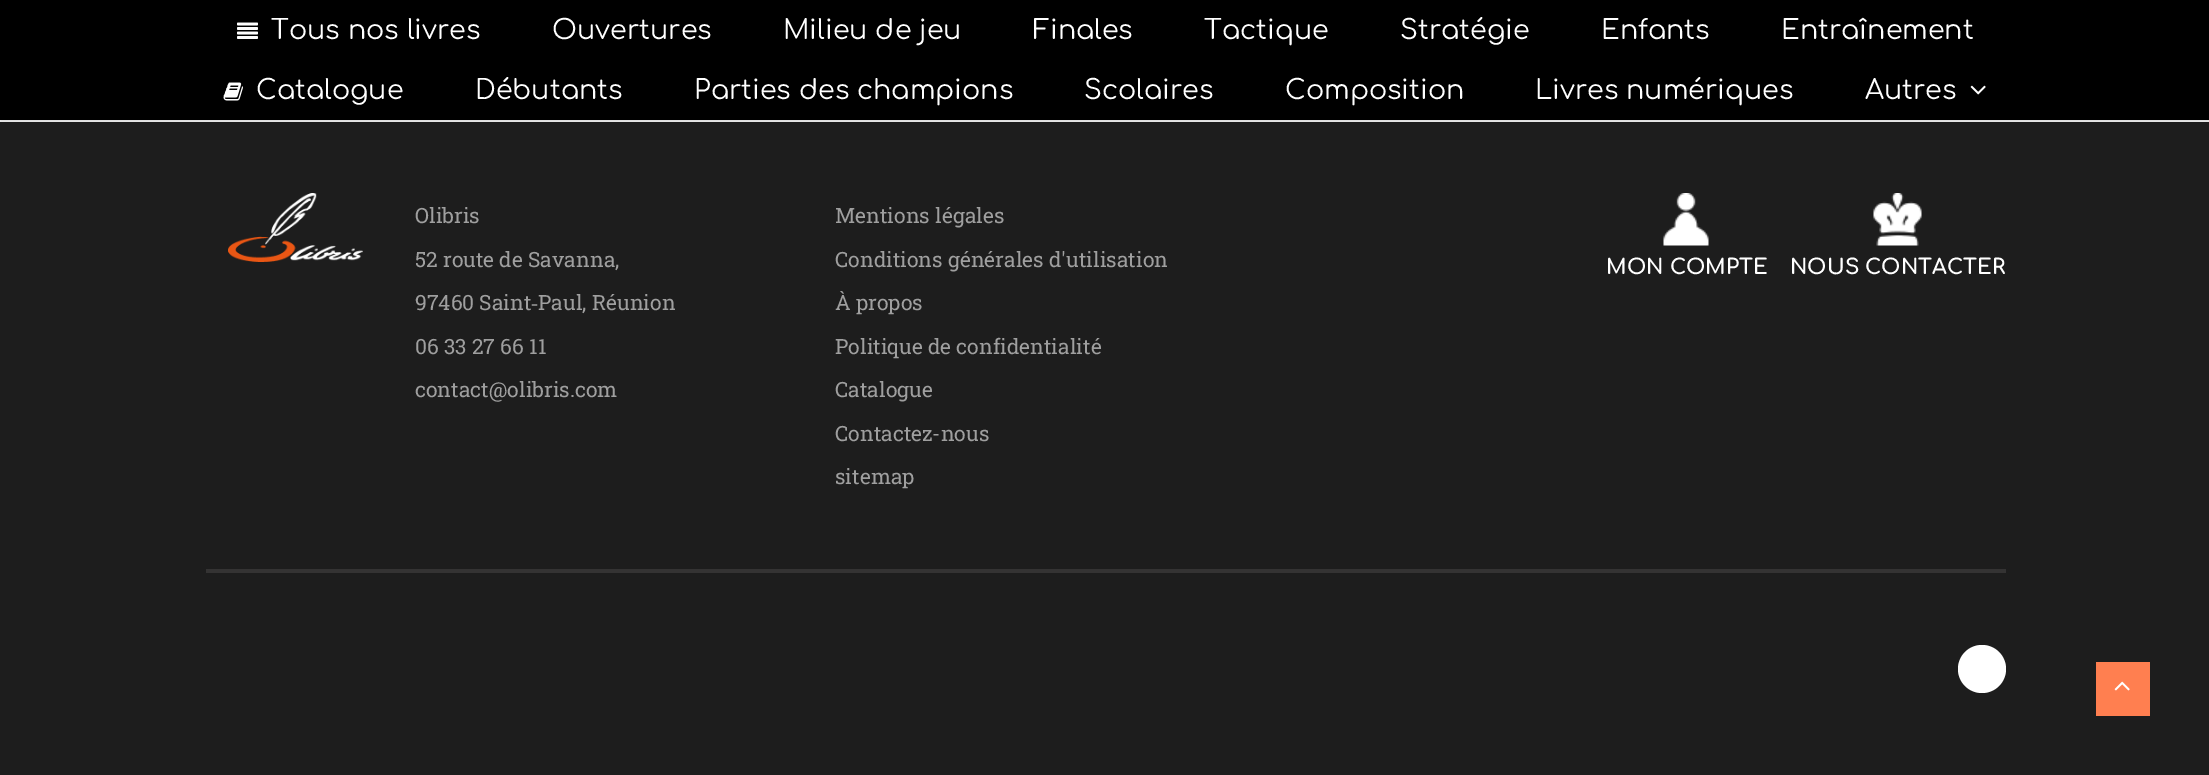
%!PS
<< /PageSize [2209 775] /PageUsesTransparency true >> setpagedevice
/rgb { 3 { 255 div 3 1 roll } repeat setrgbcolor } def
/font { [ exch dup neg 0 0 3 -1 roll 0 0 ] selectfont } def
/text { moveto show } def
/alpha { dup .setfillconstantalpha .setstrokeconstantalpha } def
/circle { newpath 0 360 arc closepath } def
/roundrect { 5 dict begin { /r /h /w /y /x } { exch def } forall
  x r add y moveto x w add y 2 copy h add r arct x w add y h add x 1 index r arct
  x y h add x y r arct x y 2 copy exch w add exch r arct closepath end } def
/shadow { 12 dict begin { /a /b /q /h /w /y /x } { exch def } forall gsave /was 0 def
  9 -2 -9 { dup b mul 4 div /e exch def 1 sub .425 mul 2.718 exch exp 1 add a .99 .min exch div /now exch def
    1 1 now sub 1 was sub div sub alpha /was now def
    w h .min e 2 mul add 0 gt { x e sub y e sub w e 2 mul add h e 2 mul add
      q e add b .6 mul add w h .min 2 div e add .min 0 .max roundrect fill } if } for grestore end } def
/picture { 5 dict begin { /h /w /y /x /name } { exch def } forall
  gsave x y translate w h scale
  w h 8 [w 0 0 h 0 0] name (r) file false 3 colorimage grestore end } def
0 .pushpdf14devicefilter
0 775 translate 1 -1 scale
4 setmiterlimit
255 255 255 rgb
0 0 2209 775 rectfill
29 29 29 rgb
0 122 2209 653 rectfill
0 0 0 rgb
0 2 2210 120 0 1.5 0.15 shadow
0 0 2209 120 rectfill
(img_01.rgb) 237 22 21 17 picture
(img_02.rgb) 223 82 20 19 picture
(img_03.rgb) 1970 85 16 10 picture
52 51 51 rgb
206 569 1800 4 rectfill
(img_04.rgb) 228 193 135 69 picture
(img_05.rgb) 1663 193 46 53 picture
(img_06.rgb) 1873 193 49 53 picture
255 255 255 rgb
1982 669 24 circle fill
255 127 80 rgb
2096 662 54 54 rectfill
(img_07.rgb) 2114 681 16 10 picture
/Comfortaa-Regular 27 font
255 255 255 rgb
(Tous nos livres) 271 39 text
(Ouvertures) 552 39 text
(Milieu de jeu) 783 39 text
(Finales) 1033 39 text
(Tactique) 1204 39 text
(Stratégie) 1400 39 text
(Enfants) 1601 39 text
(Entraînement) 1781 39 text
(Catalogue) 256 99 text
(Débutants) 475 99 text
(Parties des champions) 694 99 text
(Scolaires) 1084 99 text
(Composition) 1285 99 text
(Livres numériques) 1535 99 text
(Autres) 1865 99 text
/RobotoSlab-Regular 21 font
159 159 159 rgb
(Olibris) 415 223 text
(52 route de Savanna,) 415 267 text
(97460 Saint) 415 310 text
/LiberationSerif-Regular 21 font
(‐) 531 310 text
/RobotoSlab-Regular 21 font
(Paul, Réunion) 538 310 text
(06 33 27 66 11) 415 354 text
(contact@olibris.com) 415 397 text
(Mentions légales) 835 223 text
(Conditions générales d'utilisation) 835 267 text
(À propos) 835 310 text
(Politique de confidentialité) 835 354 text
(Catalogue) 835 397 text
(Contactez-nous) 835 441 text
(sitemap) 835 484 text
/Comfortaa-Bold 21 font
255 255 255 rgb
(MON COMPTE) 1606 274 text
(NOUS CONTACTER) 1790 274 text
.poppdf14devicefilter showpage
